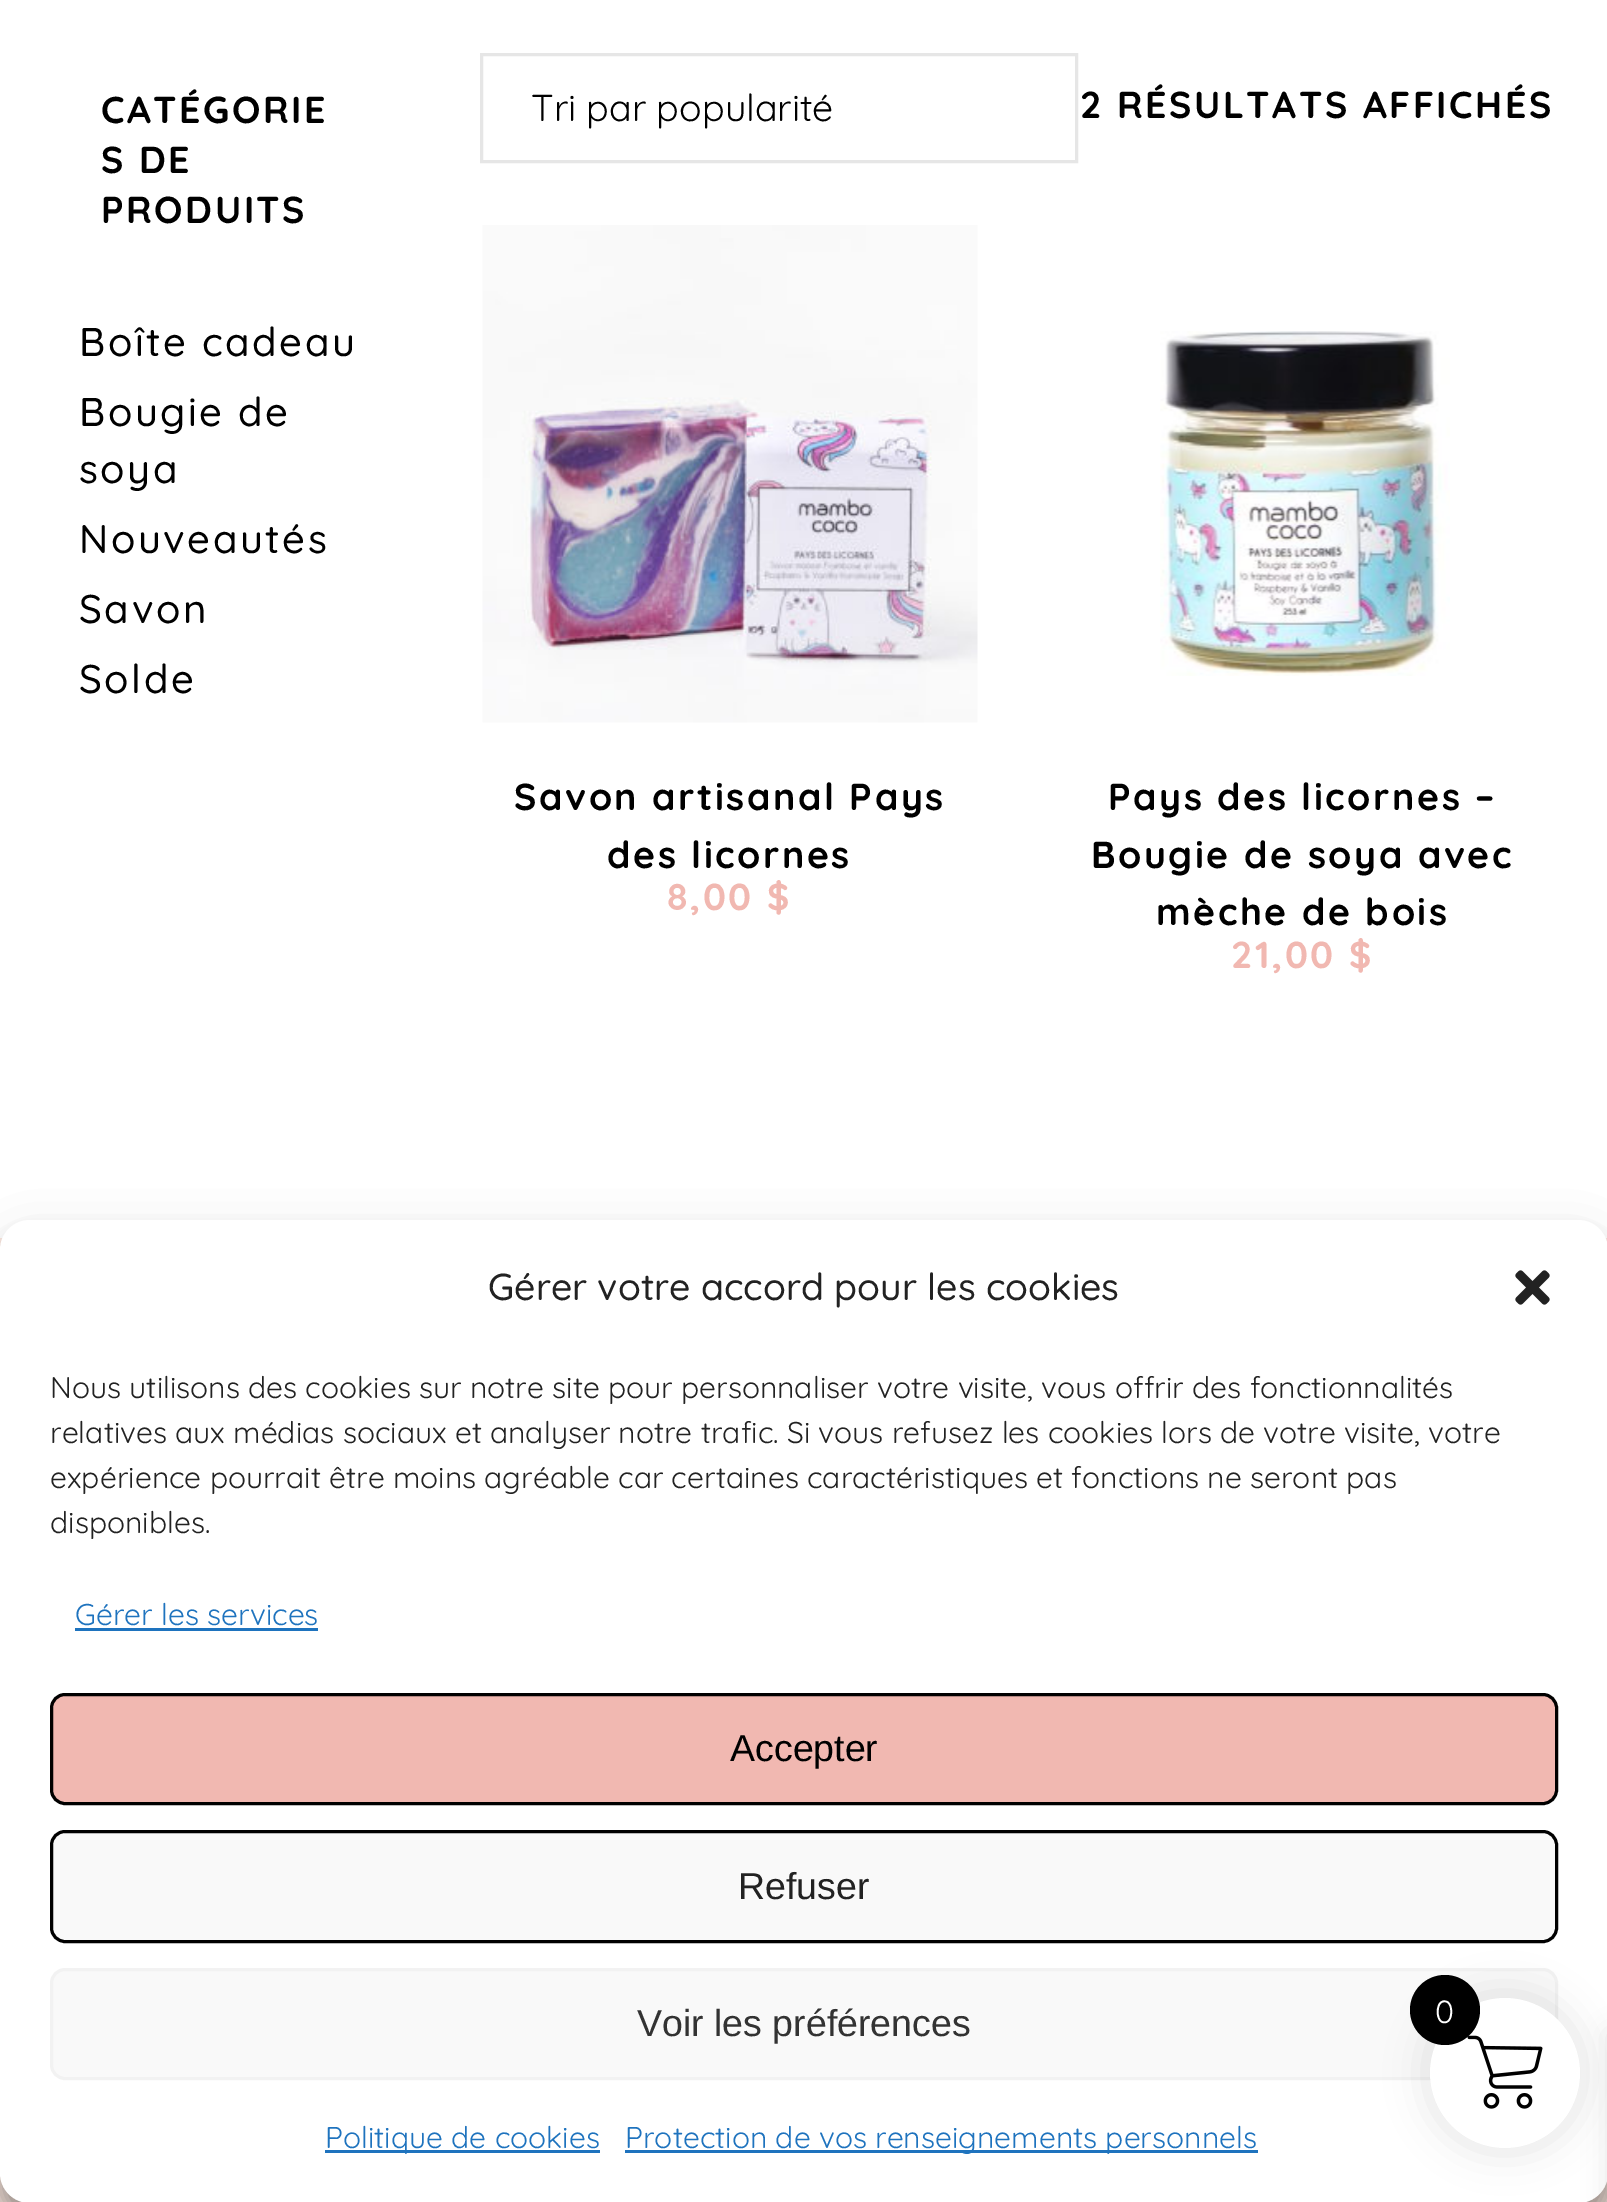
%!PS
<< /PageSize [1607 2202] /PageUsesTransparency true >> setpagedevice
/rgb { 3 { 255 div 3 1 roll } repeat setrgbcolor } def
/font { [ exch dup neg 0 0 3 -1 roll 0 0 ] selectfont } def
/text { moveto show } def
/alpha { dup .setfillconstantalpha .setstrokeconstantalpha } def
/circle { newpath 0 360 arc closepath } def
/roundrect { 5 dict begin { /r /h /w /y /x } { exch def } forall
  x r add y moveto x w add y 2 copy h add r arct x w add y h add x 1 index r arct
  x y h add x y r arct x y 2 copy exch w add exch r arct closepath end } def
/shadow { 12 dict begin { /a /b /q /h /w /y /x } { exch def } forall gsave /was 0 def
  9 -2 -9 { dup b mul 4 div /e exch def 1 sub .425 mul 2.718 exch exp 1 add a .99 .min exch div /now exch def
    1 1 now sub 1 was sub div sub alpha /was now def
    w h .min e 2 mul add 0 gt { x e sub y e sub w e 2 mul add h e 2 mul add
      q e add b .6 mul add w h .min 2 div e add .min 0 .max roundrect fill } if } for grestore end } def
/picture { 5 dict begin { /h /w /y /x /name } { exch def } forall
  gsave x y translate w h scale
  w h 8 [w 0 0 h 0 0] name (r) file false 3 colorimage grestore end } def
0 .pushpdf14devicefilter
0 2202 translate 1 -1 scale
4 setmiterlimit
255 255 255 rgb
0 0 1607 2202 rectfill
230 230 230 rgb
3 setlinewidth
481.5 54.5 595 107 rectstroke
(img_01.rgb) 482 225 496 498 picture
(img_02.rgb) 1160 331 290 345 picture
249 230 223 rgb
0 1238 1607 12 rectfill
0 2173 1607 29 rectfill
0 0 0 rgb
0 1235 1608 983 30 7.5 0.23 shadow
0 1245 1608 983 30 25 0.19 shadow
255 255 255 rgb
0 1220 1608 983 30 roundrect fill
(img_03.rgb) 1515 1270 35 35 picture
30 115 190 rgb
75 1628 243 3 rectfill
241 184 177 rgb
51.5 1694.5 1505 109 13.5 roundrect gsave fill grestore
0 0 0 rgb
stroke
249 249 249 rgb
51.5 1831.5 1505 110 13.5 roundrect gsave fill grestore
0 0 0 rgb
stroke
249 249 249 rgb
51.5 1969.5 1505 109 13.5 roundrect gsave fill grestore
242 242 242 rgb
stroke
30 115 190 rgb
325 2150 275 3 rectfill
625 2150 633 3 rectfill
0 0 0 rgb
1425 1993 160 160 80 19 0.1 shadow
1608 2033 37 167 0 12.5 0.1 shadow
255 255 255 rgb
1505 2073 75 circle fill
(img_04.rgb) 1467 2035 76 74 picture
0 0 0 rgb
1445 2010 35 circle fill
/Quicksand-Bold 37.5 font
101 123 moveto 2.5 0 (CATÉGORIE) ashow
101 173 moveto 2.5 0 (S DE) ashow
101 223 moveto 2.5 0 (PRODUITS) ashow
/Quicksand-Medium 40 font
79 356 moveto 2.5 0 (Boîte cadeau) ashow
79 426 moveto 2.5 0 (Bougie de) ashow
79 483 moveto 2.5 0 (soya) ashow
79 553 moveto 2.5 0 (Nouveautés) ashow
79 623 moveto 2.5 0 (Savon) ashow
79 693 moveto 2.5 0 (Solde) ashow
/Quicksand-Regular 37.5 font
(Tri par popularité) 531 121 text
/Quicksand-Bold 37.5 font
1080 118 moveto 2.5 0 (2 RÉSULTATS AFFICHÉS) ashow
514 810 moveto 2.5 0 (Savon artisanal Pays) ashow
607 868 moveto 2.5 0 (des licornes) ashow
241 184 177 rgb
667 910 moveto 2.5 0 (8,00 $) ashow
0 0 0 rgb
1108 810 moveto 2.5 0 (Pays des licornes –) ashow
1091 868 moveto 2.5 0 (Bougie de soya avec) ashow
1156 925 moveto 2.5 0 (mèche de bois) ashow
241 184 177 rgb
1231 968 moveto 2.5 0 (21,00 $) ashow
/Quicksand-Medium 37.5 font
34 34 34 rgb
(Gérer votre accord pour les cookies) 488 1300 text
/Quicksand-Regular 30 font
(Nous utilisons des cookies sur notre site pour personnaliser votre visite, vous offrir des fonctionnalités) 50 1398 text
(relatives aux médias sociaux et analyser notre trafic. Si vous refusez les cookies lors de votre visite, votre) 50 1443 text
(expérience pourrait être moins agréable car certaines caractéristiques et fonctions ne seront pas) 50 1488 text
(disponibles.) 50 1533 text
30 115 190 rgb
(Gérer les services) 75 1625 text
/LiberationSans-Regular 37.5 font
0 0 0 rgb
(Accepter) 730 1761 text
34 34 34 rgb
(Refuser) 738 1899 text
51 51 51 rgb
(Voir les préférences) 637 2036 text
/Quicksand-Regular 30 font
30 115 190 rgb
(Politique de cookies) 325 2148 text
(Protection de vos renseignements personnels) 625 2148 text
/Quicksand-Regular 32 font
255 255 255 rgb
(0) 1435 2023 text
.poppdf14devicefilter showpage
